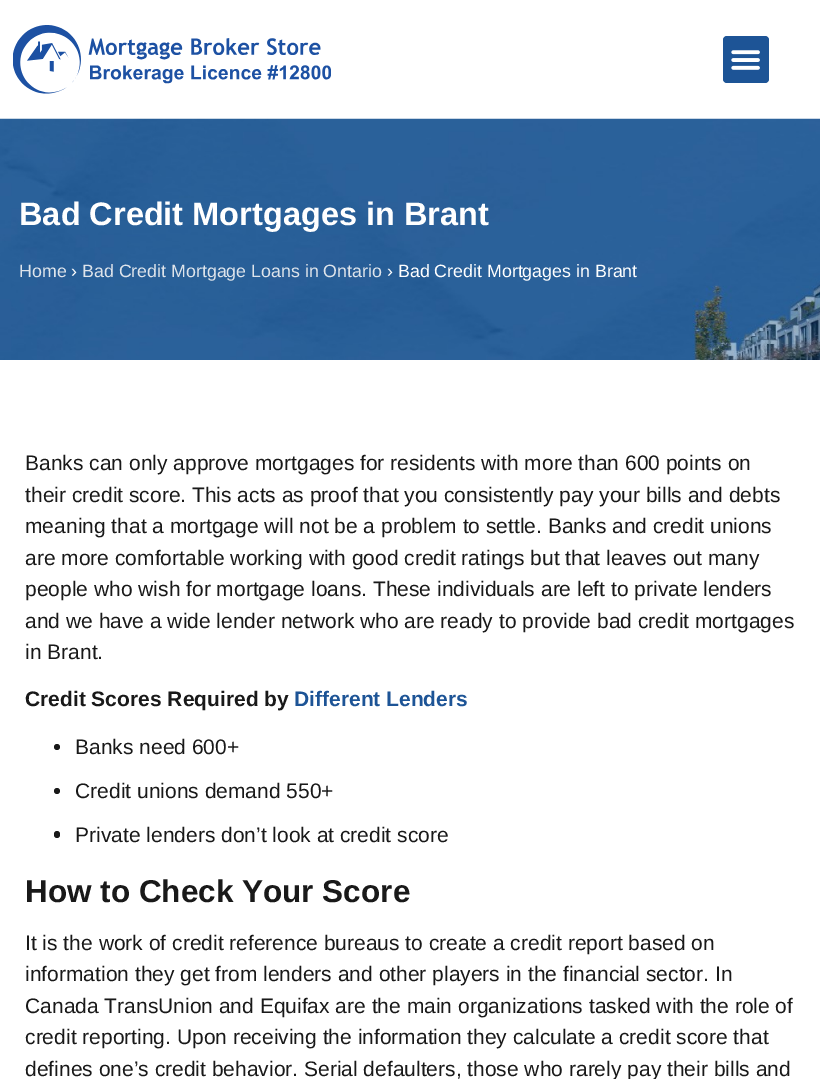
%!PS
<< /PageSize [820 1079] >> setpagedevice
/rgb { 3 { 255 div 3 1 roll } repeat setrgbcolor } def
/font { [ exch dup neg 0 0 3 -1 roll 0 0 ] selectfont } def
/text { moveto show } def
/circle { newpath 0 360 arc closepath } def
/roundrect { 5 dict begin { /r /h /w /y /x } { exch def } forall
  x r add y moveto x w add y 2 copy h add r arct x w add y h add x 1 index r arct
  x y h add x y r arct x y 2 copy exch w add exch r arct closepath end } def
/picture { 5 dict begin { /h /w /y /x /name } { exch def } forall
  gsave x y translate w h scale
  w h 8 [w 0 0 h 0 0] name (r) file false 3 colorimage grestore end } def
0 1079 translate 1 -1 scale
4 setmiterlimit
255 255 255 rgb
0 0 820 1079 rectfill
(img_01.rgb) 13 25 318 69 picture
29 84 150 rgb
723 36 46 47 4 roundrect fill
(img_02.rgb) 731 50 29 20 picture
(img_03.rgb) 0 118 820 242 picture
25 25 25 rgb
57 747 3 circle fill
57 791 3 circle fill
54 831 6 7 3 roundrect fill
/LiberationSans-Bold 32.5 font
255 255 255 rgb
(Bad Credit Mortgages in Brant) 19 225 text
/LiberationSans-Regular 17.8 font
222 228 235 rgb
(Home) 19 277 text
255 255 255 rgb
(›) 71 277 text
222 228 235 rgb
(Bad Credit Mortgage Loans in Ontario) 82 277 text
255 255 255 rgb
(› Bad Credit Mortgages in Brant) 387 277 text
/LiberationSans-Regular 21 font
25 25 25 rgb
(Banks can only approve mortgages for residents with more than 600 points on) 25 470 text
(their credit score. This acts as proof that you consistently pay your bills and debts) 25 502 text
(meaning that a mortgage will not be a problem to settle. Banks and credit unions) 25 533 text
(are more comfortable working with good credit ratings but that leaves out many) 25 565 text
(people who wish for mortgage loans. These individuals are left to private lenders) 25 596 text
(and we have a wide lender network who are ready to provide bad credit mortgages) 25 628 text
(in Brant.) 25 659 text
/LiberationSans-Bold 21 font
(Credit Scores Required by) 25 706 text
29 84 150 rgb
(Different Lenders) 294 706 text
/LiberationSans-Regular 21 font
25 25 25 rgb
(Banks need 600+) 75 754 text
(Credit unions demand 550+) 75 798 text
(Private lenders don’t look at credit score) 75 842 text
/LiberationSans-Bold 31.5 font
(How to Check Your Score) 25 902 text
/LiberationSans-Regular 21 font
(It is the work of credit reference bureaus to create a credit report based on) 25 950 text
(information they get from lenders and other players in the financial sector. In) 25 981 text
(Canada TransUnion and Equifax are the main organizations tasked with the role of) 25 1013 text
(credit reporting. Upon receiving the information they calculate a credit score that) 25 1044 text
(defines one’s credit behavior. Serial defaulters, those who rarely pay their bills and) 25 1076 text
showpage
